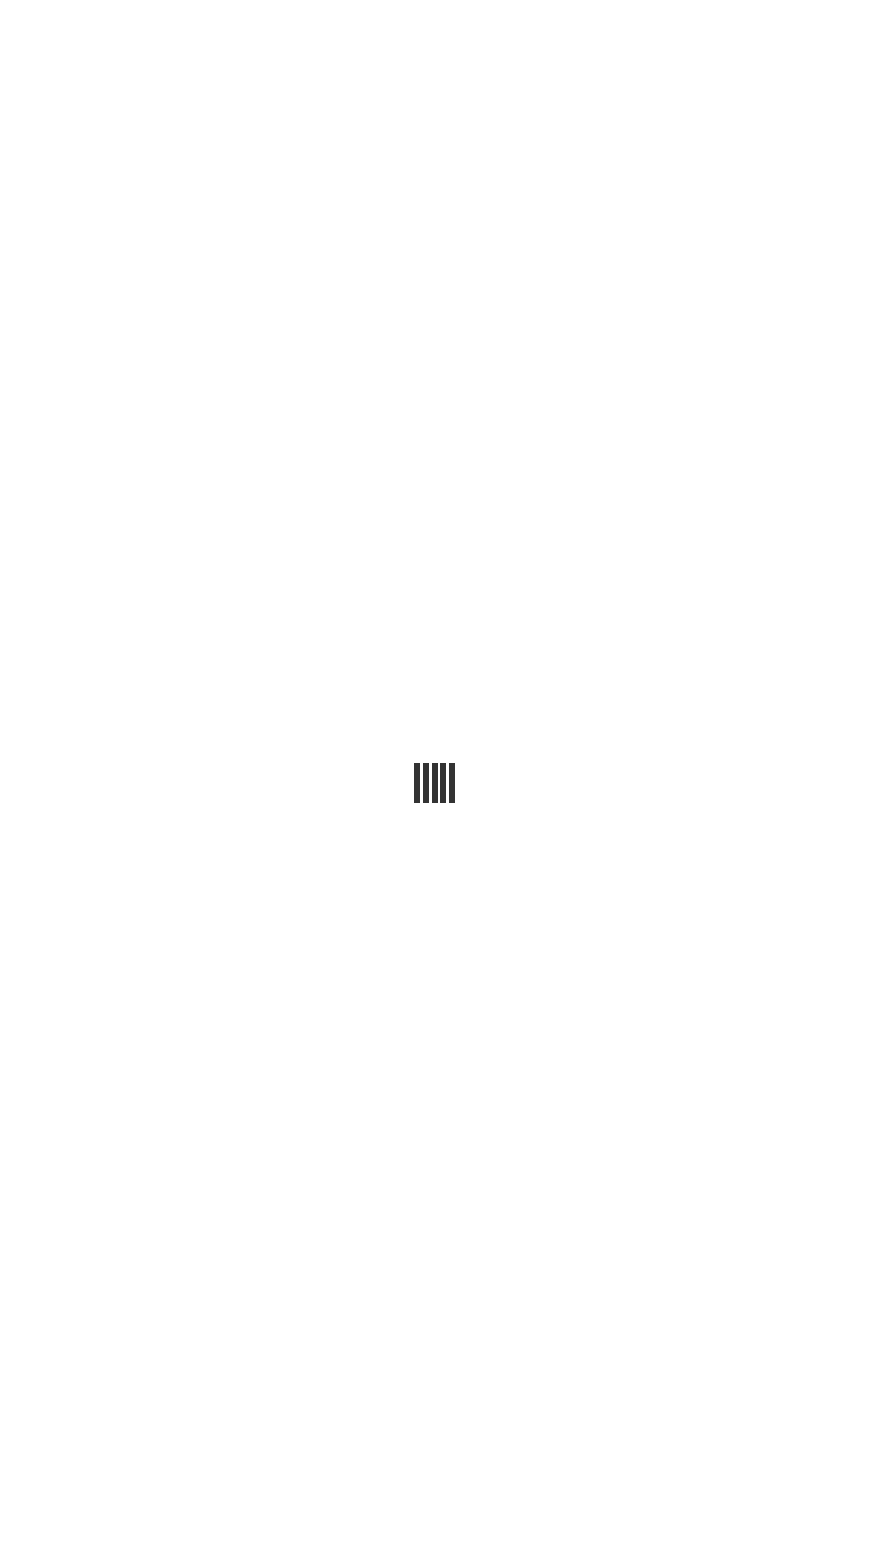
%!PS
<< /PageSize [869 1566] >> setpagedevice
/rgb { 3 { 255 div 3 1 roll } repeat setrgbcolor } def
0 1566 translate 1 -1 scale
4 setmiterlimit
255 255 255 rgb
0 0 869 1566 rectfill
51 51 51 rgb
414 763 6 40 rectfill
423 763 6 40 rectfill
432 763 6 40 rectfill
440 763 6 40 rectfill
449 763 6 40 rectfill
showpage
